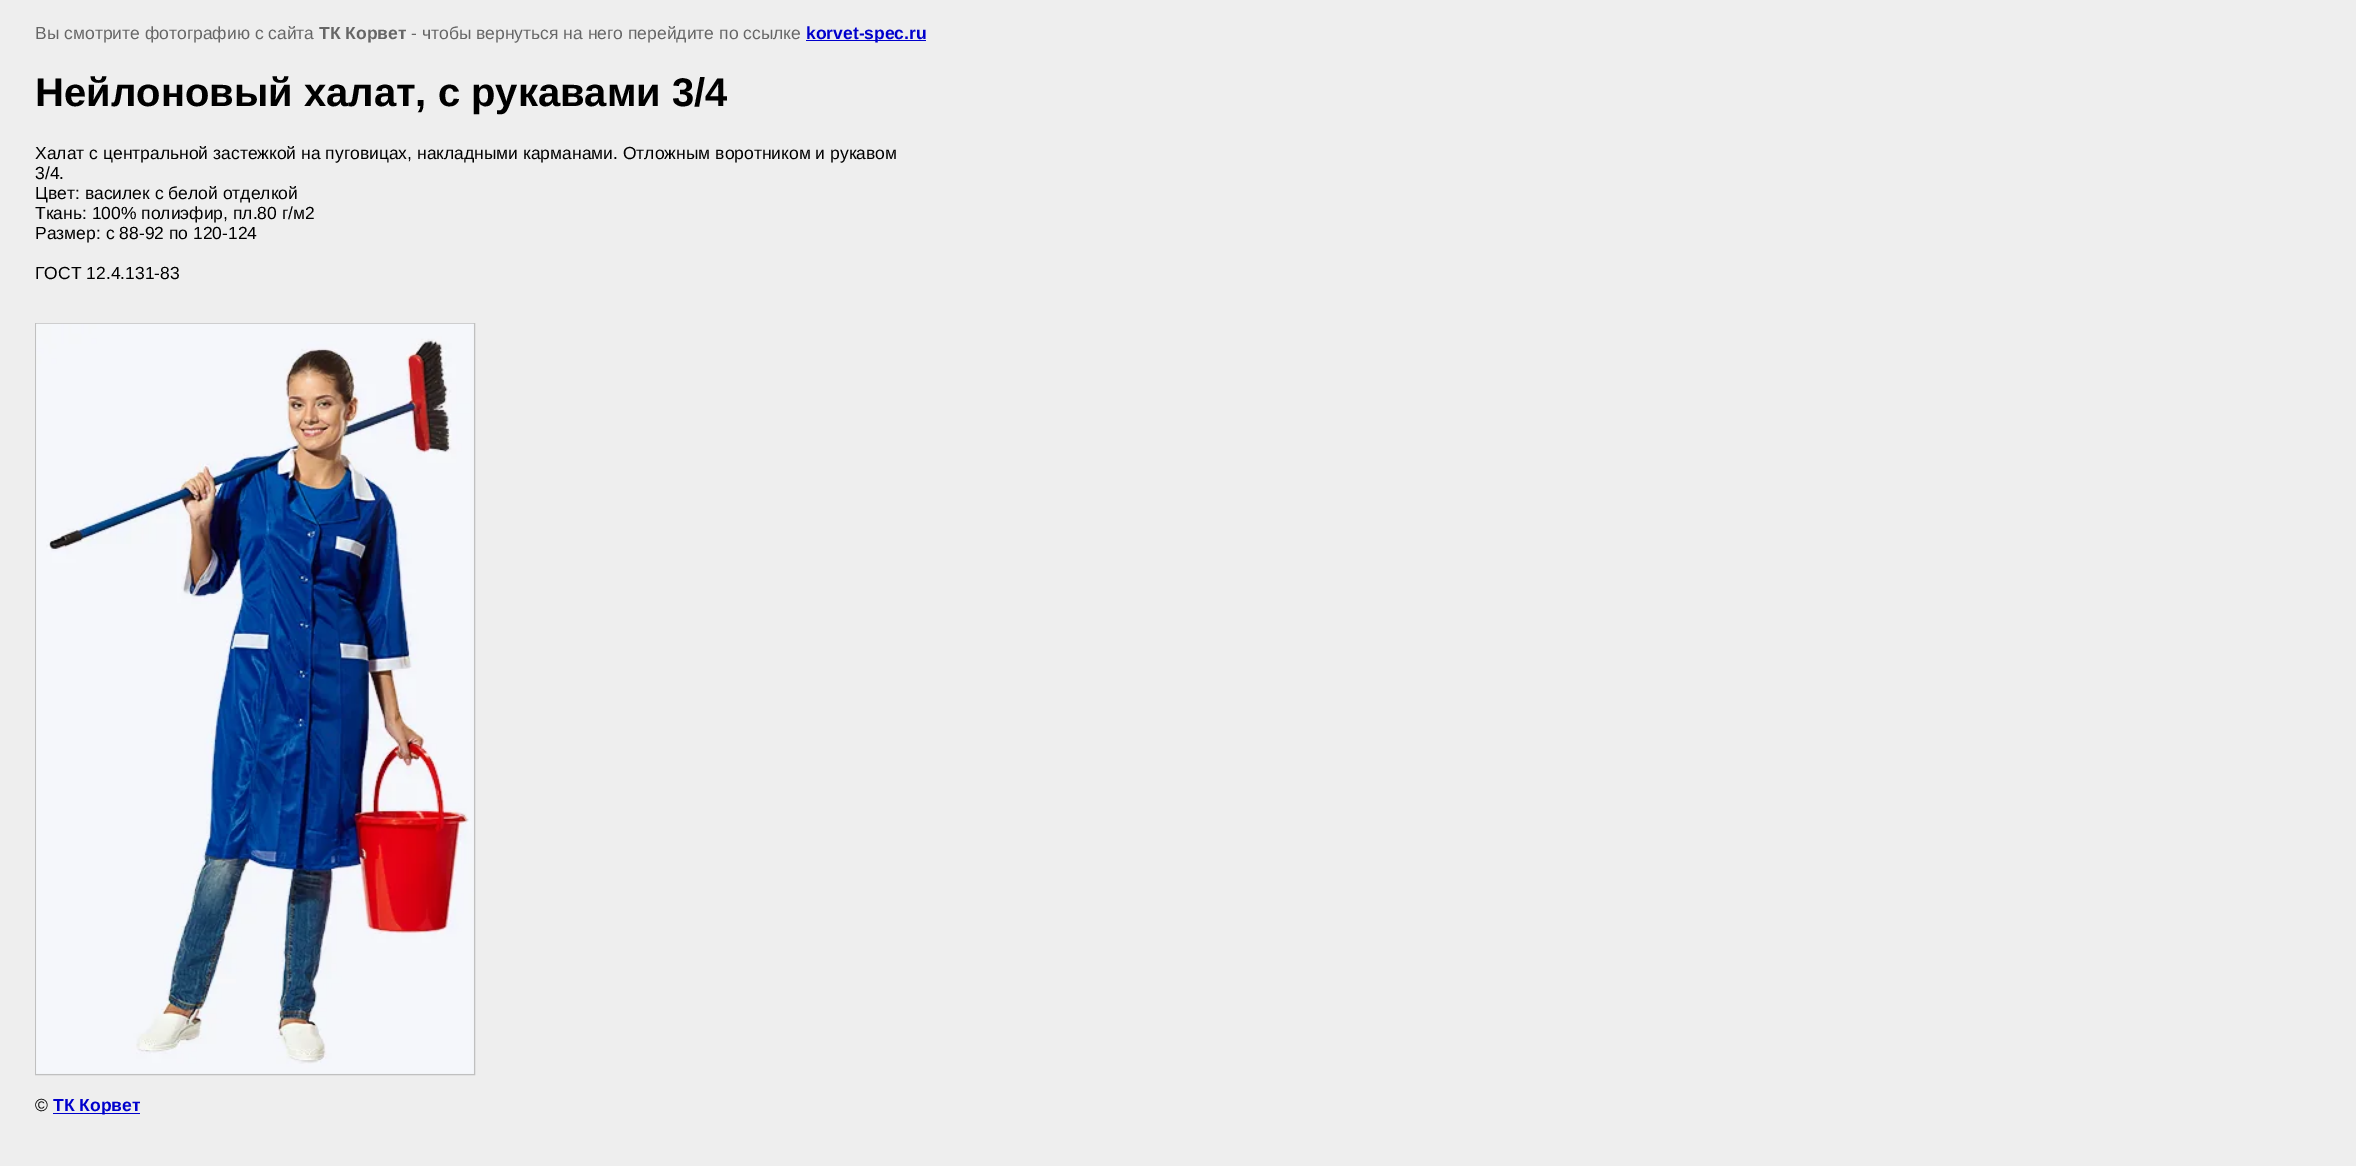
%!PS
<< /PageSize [2356 1166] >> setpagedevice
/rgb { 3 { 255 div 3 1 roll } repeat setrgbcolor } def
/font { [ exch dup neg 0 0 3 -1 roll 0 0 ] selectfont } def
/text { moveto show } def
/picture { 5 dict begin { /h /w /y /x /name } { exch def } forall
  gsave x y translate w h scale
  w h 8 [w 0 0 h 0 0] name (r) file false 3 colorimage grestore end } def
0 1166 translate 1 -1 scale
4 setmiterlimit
238 238 238 rgb
0 0 2356 1166 rectfill
0 0 204 rgb
806 40 120 1 rectfill
192 192 192 rgb
35.5 323.5 439 751 rectstroke
(img_01.rgb) 36 323 438 751 picture
0 0 204 rgb
53 1113 87 1 rectfill
/LiberationSans-Regular 17.5 font
102 102 102 rgb
(Вы смотрите фотографию с сайта) 35 39 text
/LiberationSans-Bold 17.5 font
(ТК Корвет) 319 39 text
/LiberationSans-Regular 17.5 font
(- чтобы вернуться на него перейдите по ссылке) 411 39 text
/LiberationSans-Bold 17.5 font
0 0 204 rgb
(korvet-spec.ru) 806 39 text
/LiberationSans-Bold 40 font
0 0 0 rgb
(Нейлоновый халат, с рукавами 3/4) 35 106 text
/LiberationSans-Regular 17.5 font
(Халат с центральной застежкой на пуговицах, накладными карманами. Отложным воротником и рукавом) 35 159 text
(3/4.) 35 179 text
(Цвет: василек с белой отделкой) 35 199 text
(Ткань: 100% полиэфир, пл.80 г/м2) 35 219 text
(Размер: с 88-92 по 120-124) 35 239 text
(ГОСТ 12.4.131-83) 35 279 text
(©) 35 1111 text
/LiberationSans-Bold 17.5 font
0 0 204 rgb
(ТК Корвет) 53 1111 text
showpage
